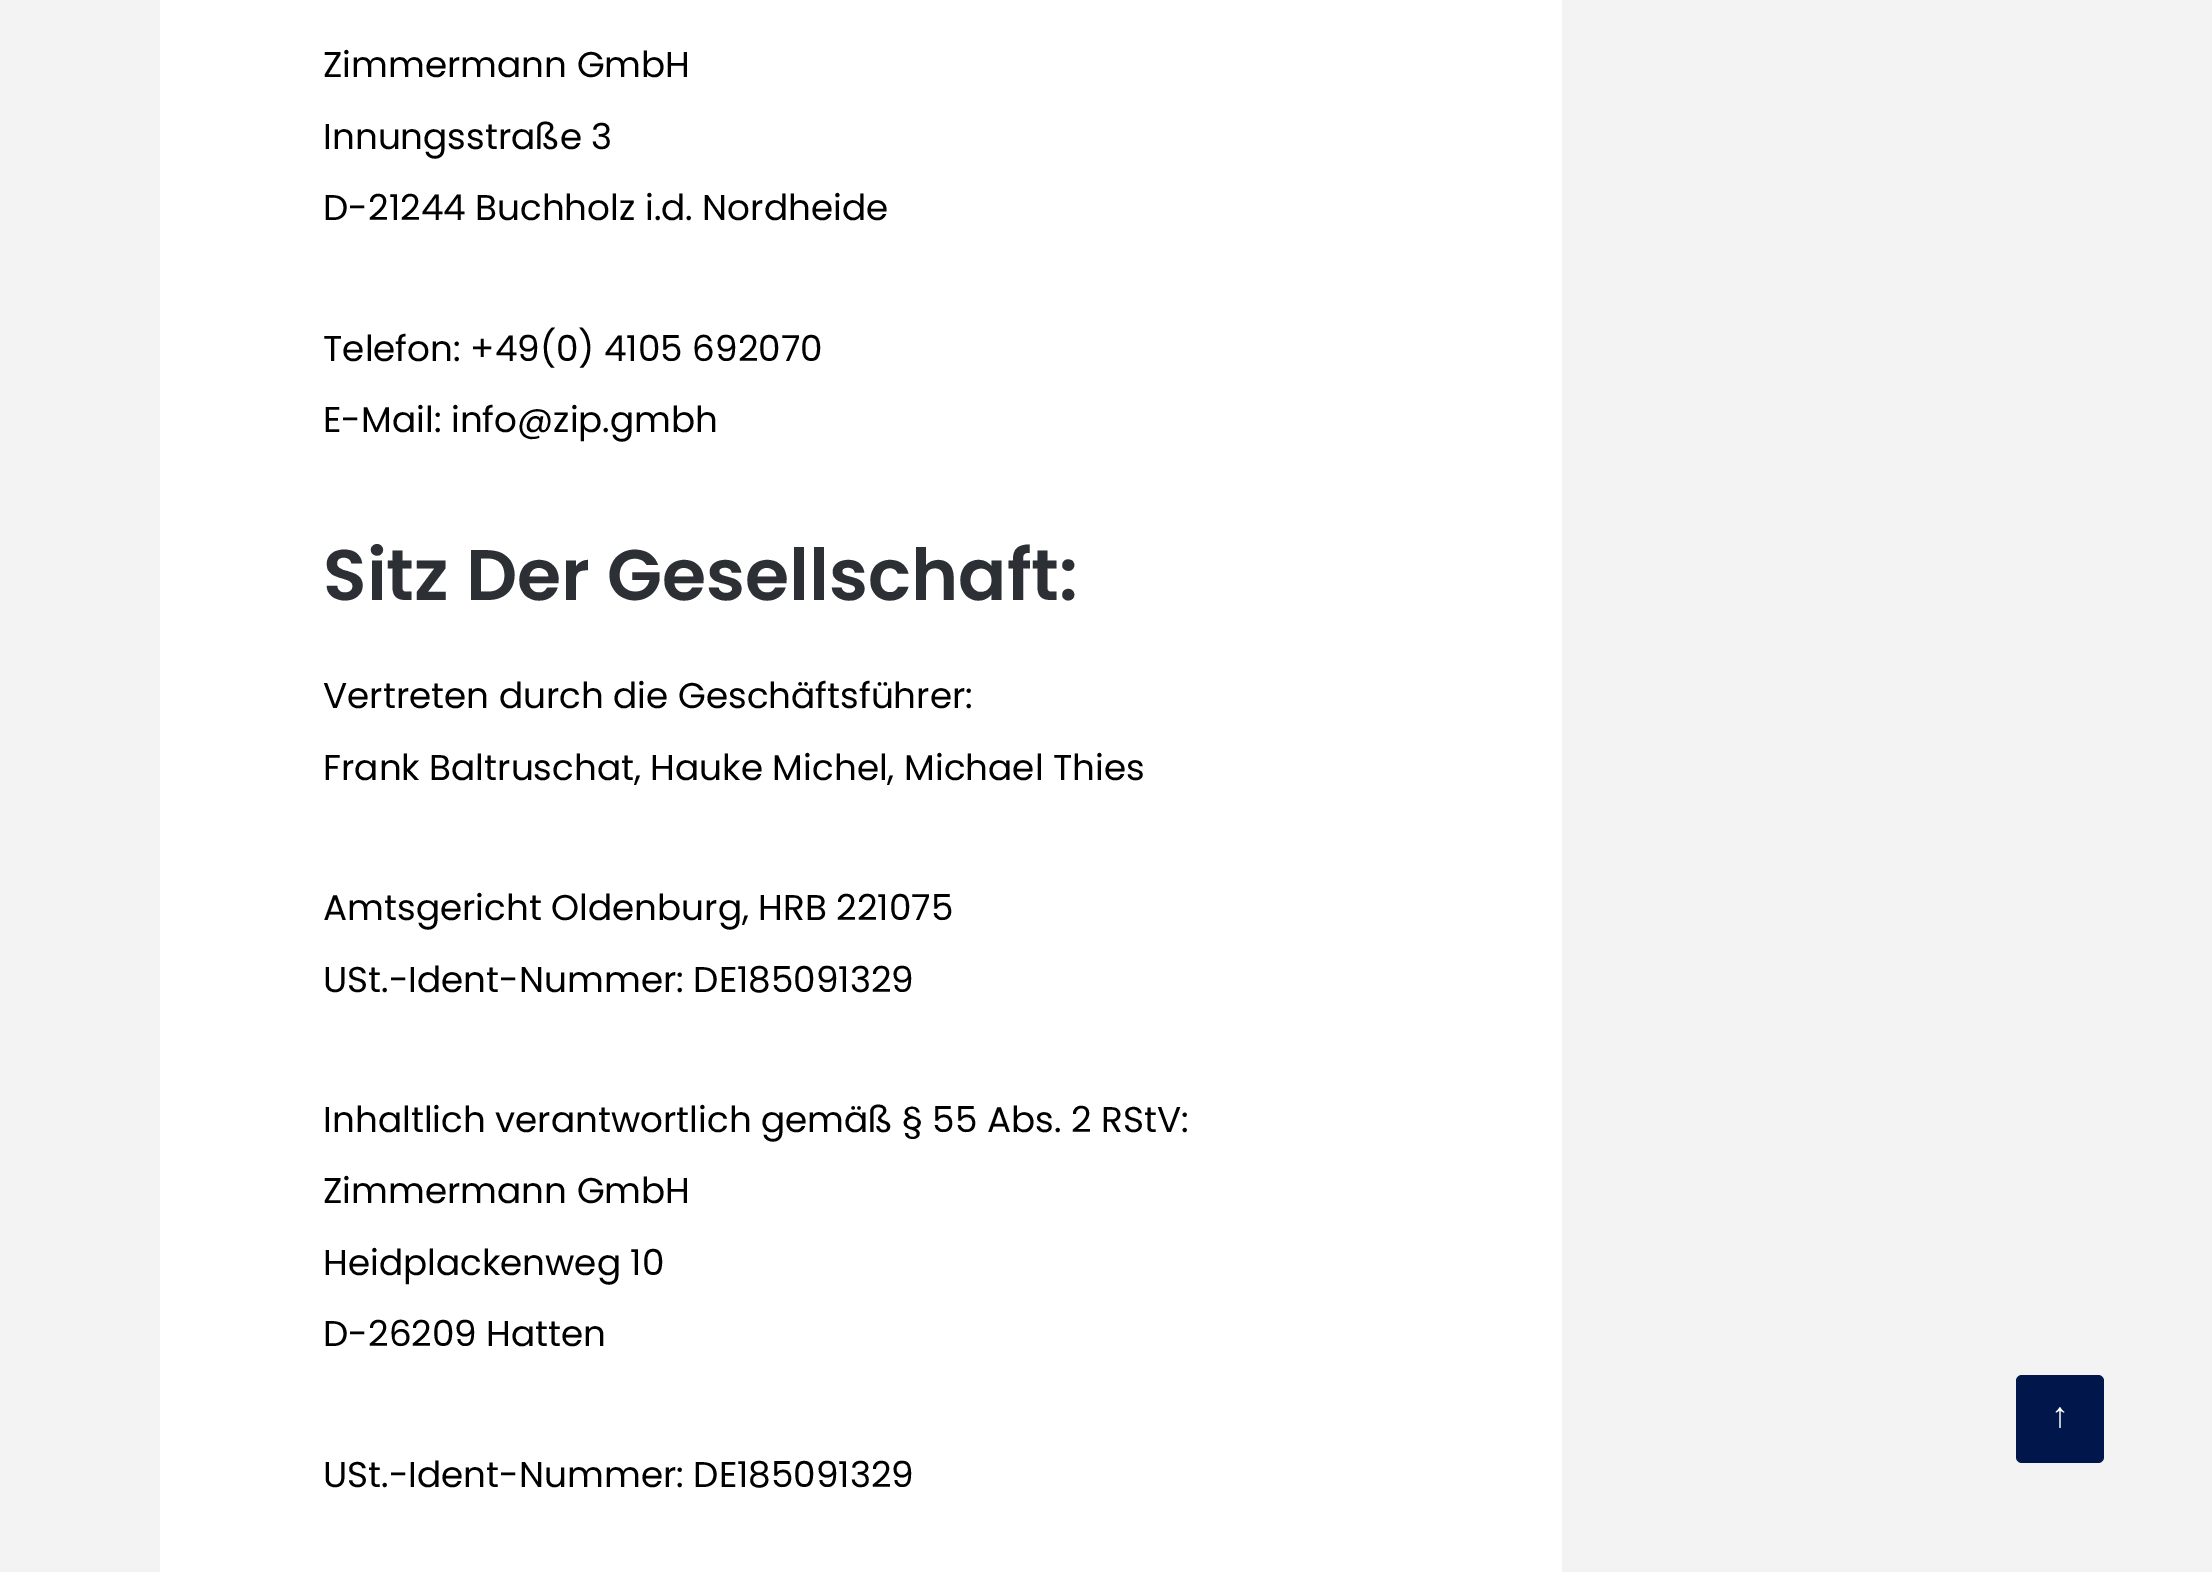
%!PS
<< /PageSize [2212 1572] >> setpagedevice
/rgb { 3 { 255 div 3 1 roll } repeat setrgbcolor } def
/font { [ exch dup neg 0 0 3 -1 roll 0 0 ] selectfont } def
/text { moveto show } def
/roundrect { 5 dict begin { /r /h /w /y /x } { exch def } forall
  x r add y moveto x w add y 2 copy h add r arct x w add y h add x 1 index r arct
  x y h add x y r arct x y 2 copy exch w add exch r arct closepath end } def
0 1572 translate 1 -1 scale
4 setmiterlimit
243 243 243 rgb
0 0 2212 1572 rectfill
255 255 255 rgb
160 0 1402 1572 rectfill
1 22 75 rgb
2016 1375 88 88 6 roundrect fill
/Poppins-Regular 35.75 font
0 0 0 rgb
(Zimmermann GmbH) 323 77 text
(Innungsstraße 3) 323 149 text
(D-21244 Buchholz i.d. Nordheide) 323 220 text
(Telefon: +49\(0\) 4105 692070) 323 361 text
(E-Mail: info@zip.gmbh) 323 432 text
/Poppins-SemiBold 71.5 font
44 47 52 rgb
(Sitz Der Gesellschaft:) 323 600 text
/Poppins-Regular 35.75 font
0 0 0 rgb
(Vertreten durch die Geschäftsführer:) 323 708 text
(Frank Baltruschat, Hauke Michel, Michael Thies) 323 780 text
(Amtsgericht Oldenburg, HRB 221075) 323 920 text
(USt.-Ident-Nummer: DE185091329) 323 992 text
(Inhaltlich verantwortlich gemäß § 55 Abs. 2 RStV:) 323 1132 text
(Zimmermann GmbH) 323 1203 text
(Heidplackenweg 10) 323 1275 text
(D-26209 Hatten) 323 1346 text
(USt.-Ident-Nummer: DE185091329) 323 1487 text
/LiberationSerif-Regular 35.75 font
255 255 255 rgb
(↑) 2051 1427 text
showpage
